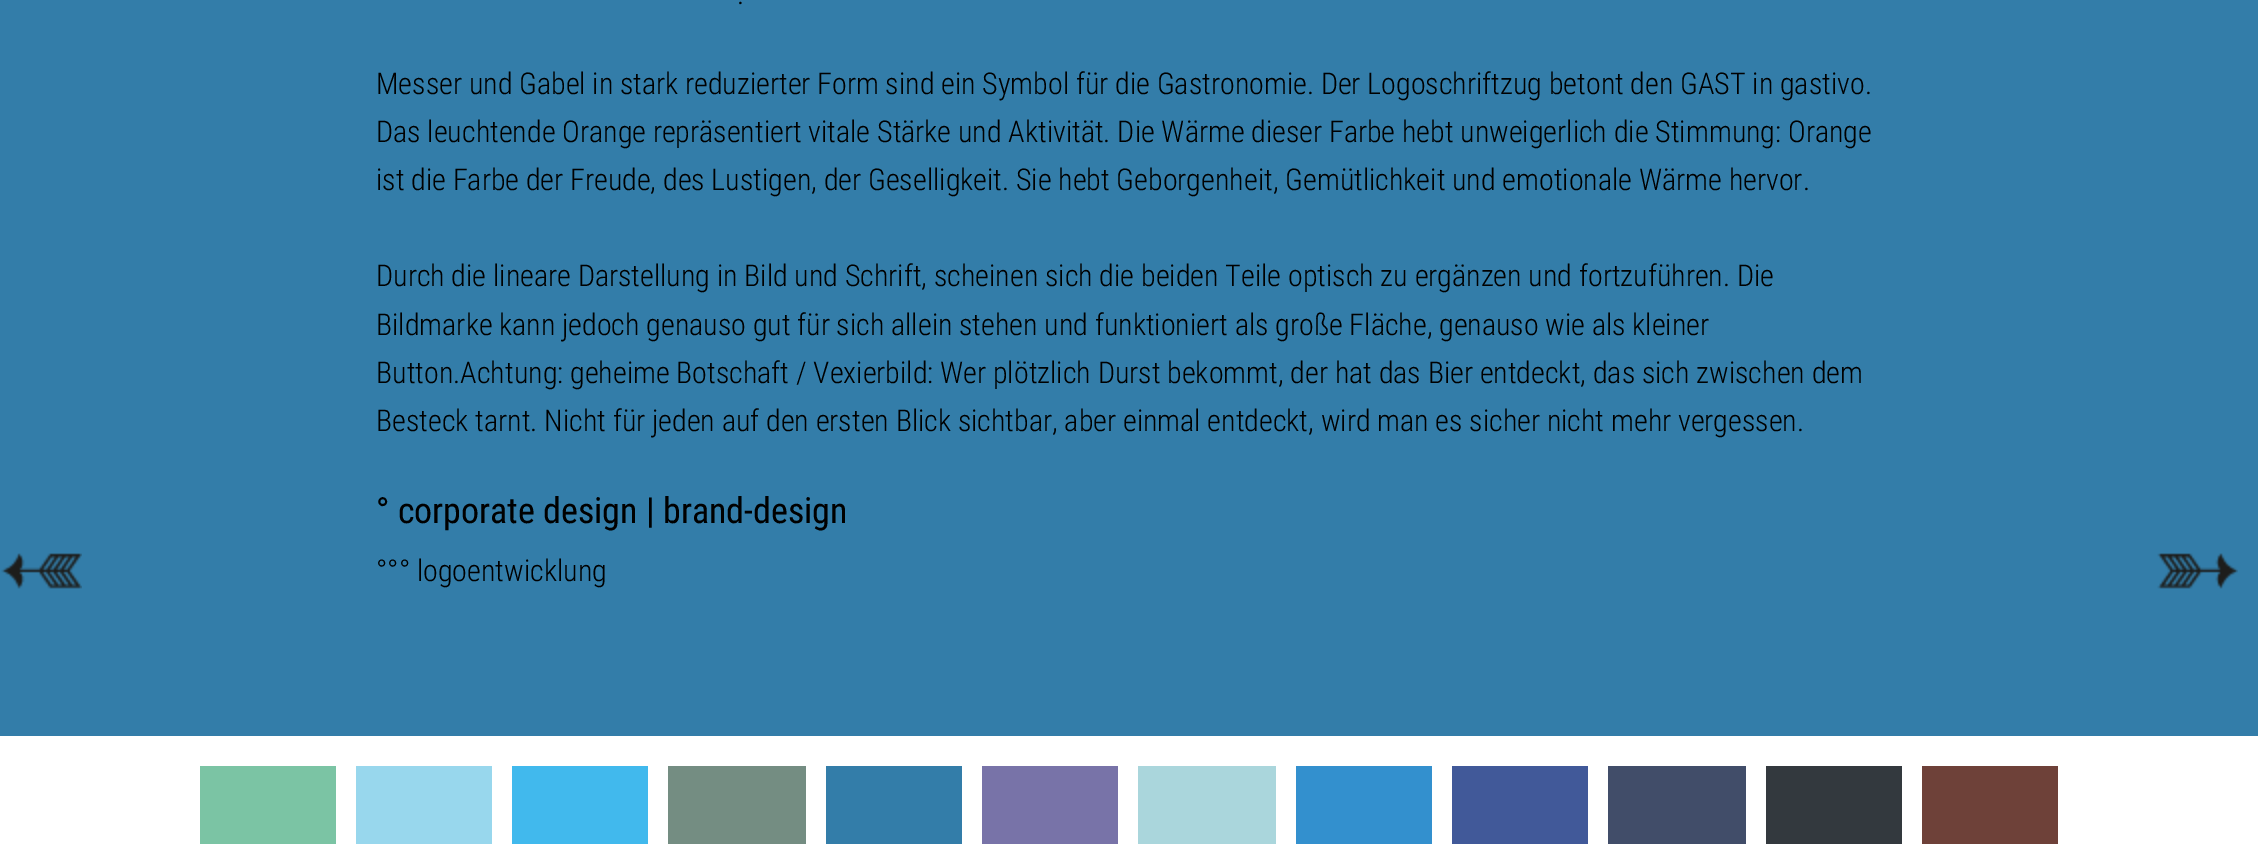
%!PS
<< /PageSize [2258 867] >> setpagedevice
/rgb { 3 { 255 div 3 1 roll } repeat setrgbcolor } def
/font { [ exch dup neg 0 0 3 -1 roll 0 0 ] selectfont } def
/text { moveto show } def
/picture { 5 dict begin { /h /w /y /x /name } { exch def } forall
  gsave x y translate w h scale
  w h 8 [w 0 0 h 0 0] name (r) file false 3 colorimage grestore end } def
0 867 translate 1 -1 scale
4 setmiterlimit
255 255 255 rgb
0 0 2258 867 rectfill
51 125 169 rgb
0 0 2258 736 rectfill
123 196 164 rgb
200 766 136 78 rectfill
152 215 237 rgb
356 766 136 78 rectfill
65 185 237 rgb
512 766 136 78 rectfill
116 141 130 rgb
668 766 138 78 rectfill
51 125 169 rgb
826 766 136 78 rectfill
120 115 168 rgb
982 766 136 78 rectfill
170 214 220 rgb
1138 766 138 78 rectfill
51 144 206 rgb
1296 766 136 78 rectfill
65 89 153 rgb
1452 766 136 78 rectfill
65 77 105 rgb
1608 766 138 78 rectfill
51 57 62 rgb
1766 766 136 78 rectfill
110 65 57 rgb
1922 766 136 78 rectfill
(img_01.rgb) 1 553 81 36 picture
(img_02.rgb) 2157 553 81 36 picture
/RobotoCondensed-Light 30.05 font
0 0 0 rgb
(.) 737 4 text
(Messer und Gabel in stark reduzierter Form sind ein Symbol für die Gastronomie. Der Logoschriftzug betont den GAST in gastivo.) 376 94 text
(Das leuchtende Orange repräsentiert vitale Stärke und Aktivität. Die Wärme dieser Farbe hebt unweigerlich die Stimmung: Orange) 376 142 text
(ist die Farbe der Freude, des Lustigen, der Geselligkeit. Sie hebt Geborgenheit, Gemütlichkeit und emotionale Wärme hervor.) 376 190 text
(Durch die lineare Darstellung in Bild und Schrift, scheinen sich die beiden Teile optisch zu ergänzen und fortzuführen. Die) 376 286 text
(Bildmarke kann jedoch genauso gut für sich allein stehen und funktioniert als große Fläche, genauso wie als kleiner) 376 335 text
(Button.Achtung: geheime Botschaft / Vexierbild: Wer plötzlich Durst bekommt, der hat das Bier entdeckt, das sich zwischen dem) 376 383 text
(Besteck tarnt. Nicht für jeden auf den ersten Blick sichtbar, aber einmal entdeckt, wird man es sicher nicht mehr vergessen.) 376 431 text
/RobotoCondensed-Regular 36 font
(° corporate design | brand-design) 376 523 text
/RobotoCondensed-Light 30.05 font
(°°° logoentwicklung) 376 581 text
showpage
